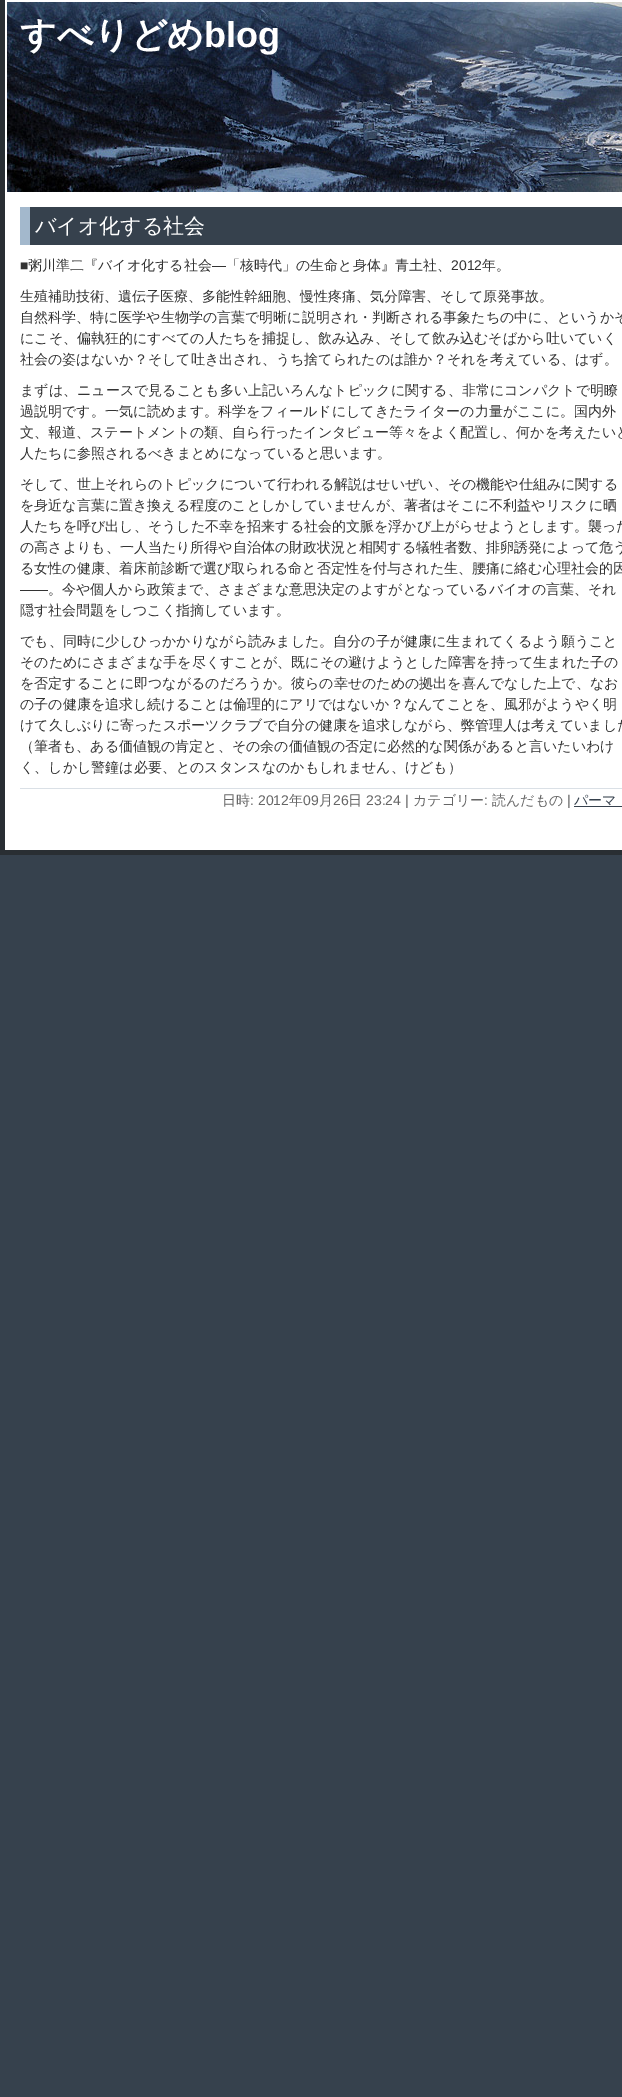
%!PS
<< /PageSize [622 2097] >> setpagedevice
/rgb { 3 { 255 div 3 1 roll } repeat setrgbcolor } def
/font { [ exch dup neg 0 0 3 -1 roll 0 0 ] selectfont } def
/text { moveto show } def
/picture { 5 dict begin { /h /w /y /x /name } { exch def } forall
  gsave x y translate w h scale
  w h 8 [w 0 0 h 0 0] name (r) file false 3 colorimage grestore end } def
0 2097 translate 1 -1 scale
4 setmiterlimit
54 65 77 rgb
0 0 622 2097 rectfill
255 255 255 rgb
5 192 617 658 rectfill
41 46 51 rgb
0 850 622 5 rectfill
0 0 5 855 rectfill
(img_01.rgb) 7 2 615 190 picture
255 255 255 rgb
5 0 617 2 rectfill
5 0 2 192 rectfill
54 65 77 rgb
30 207 592 38 rectfill
163 184 204 rgb
20 207 10 38 rectfill
218 224 230 rgb
20 788 602 1 rectfill
54 65 77 rgb
574 806 48 1 rectfill
/WenQuanYiZenHei-Bold 36 font
255 255 255 rgb
(すべりどめ) 20 47 text
/LiberationSans-Bold 36 font
(blog) 204 47 text
/WenQuanYiZenHei-Medium 21 font
(バイオ化する社会) 35 233 text
/LiberationSans-Regular 14 font
51 51 51 rgb
(■) 20 270 text
/WenQuanYiZenHei-Medium 14 font
(粥川準二『バイオ化する社会) 28 270 text
/LiberationSans-Regular 14 font
(―) 212 270 text
/WenQuanYiZenHei-Medium 14 font
(「核時代」の生命と身体』青土社、) 226 270 text
/LiberationSans-Regular 14 font
(2012) 451 270 text
/WenQuanYiZenHei-Medium 14 font
(年。) 482 270 text
(生殖補助技術、遺伝子医療、多能性幹細胞、慢性疼痛、気分障害、そして原発事故。) 20 301 text
(自然科学、特に医学や生物学の言葉で明晰に説明され・判断される事象たちの中に、というかそ) 20 322 text
(にこそ、偏執狂的にすべての人たちを捕捉し、飲み込み、そして飲み込むそばから吐いていく) 20 343 text
(社会の姿はないか？そして吐き出され、うち捨てられたのは誰か？それを考えている、はず。) 20 364 text
(まずは、ニュースで見ることも多い上記いろんなトピックに関する、非常にコンパクトで明瞭) 20 395 text
(過説明です。一気に読めます。科学をフィールドにしてきたライターの力量がここに。国内外) 20 416 text
(文、報道、ステートメントの類、自ら行ったインタビュー等々をよく配置し、何かを考えたいと) 20 437 text
(人たちに参照されるべきまとめになっていると思います。) 20 458 text
(そして、世上それらのトピックについて行われる解説はせいぜい、その機能や仕組みに関する) 20 489 text
(を身近な言葉に置き換える程度のことしかしていませんが、著者はそこに不利益やリスクに晒) 20 510 text
(人たちを呼び出し、そうした不幸を招来する社会的文脈を浮かび上がらせようとします。襲った) 20 531 text
(の高さよりも、一人当たり所得や自治体の財政状況と相関する犠牲者数、排卵誘発によって危う) 20 552 text
(る女性の健康、着床前診断で選び取られる命と否定性を付与された生、腰痛に絡む心理社会的因) 20 573 text
/LiberationSans-Regular 14 font
(――) 20 594 text
/WenQuanYiZenHei-Medium 14 font
(。今や個人から政策まで、さまざまな意思決定のよすがとなっているバイオの言葉、それ) 48 594 text
(隠す社会問題をしつこく指摘しています。) 20 615 text
(でも、同時に少しひっかかりながら読みました。自分の子が健康に生まれてくるよう願うこと) 20 646 text
(そのためにさまざまな手を尽くすことが、既にその避けようとした障害を持って生まれた子の) 20 667 text
(を否定することに即つながるのだろうか。彼らの幸せのための拠出を喜んでなした上で、なお) 20 688 text
(の子の健康を追求し続けることは倫理的にアリではないか？なんてことを、風邪がようやく明) 20 709 text
(けて久しぶりに寄ったスポーツクラブで自分の健康を追求しながら、弊管理人は考えていました) 20 730 text
(（筆者も、ある価値観の肯定と、その余の価値観の否定に必然的な関係があると言いたいわけ) 20 751 text
(く、しかし警鐘は必要、とのスタンスなのかもしれません、けども）) 20 772 text
102 102 102 rgb
(日時) 222 805 text
/LiberationSans-Regular 14 font
(: 2012) 250 805 text
/WenQuanYiZenHei-Medium 14 font
(年) 289 805 text
/LiberationSans-Regular 14 font
(09) 303 805 text
/WenQuanYiZenHei-Medium 14 font
(月) 319 805 text
/LiberationSans-Regular 14 font
(26) 333 805 text
/WenQuanYiZenHei-Medium 14 font
(日) 348 805 text
/LiberationSans-Regular 14 font
(23:24 |) 366 805 text
/WenQuanYiZenHei-Medium 14 font
(カテゴリー) 413 805 text
/LiberationSans-Regular 14 font
(:) 484 805 text
/WenQuanYiZenHei-Medium 14 font
(読んだもの) 492 805 text
/LiberationSans-Regular 14 font
(|) 567 805 text
/WenQuanYiZenHei-Medium 14 font
54 65 77 rgb
(パーマ) 574 805 text
showpage
